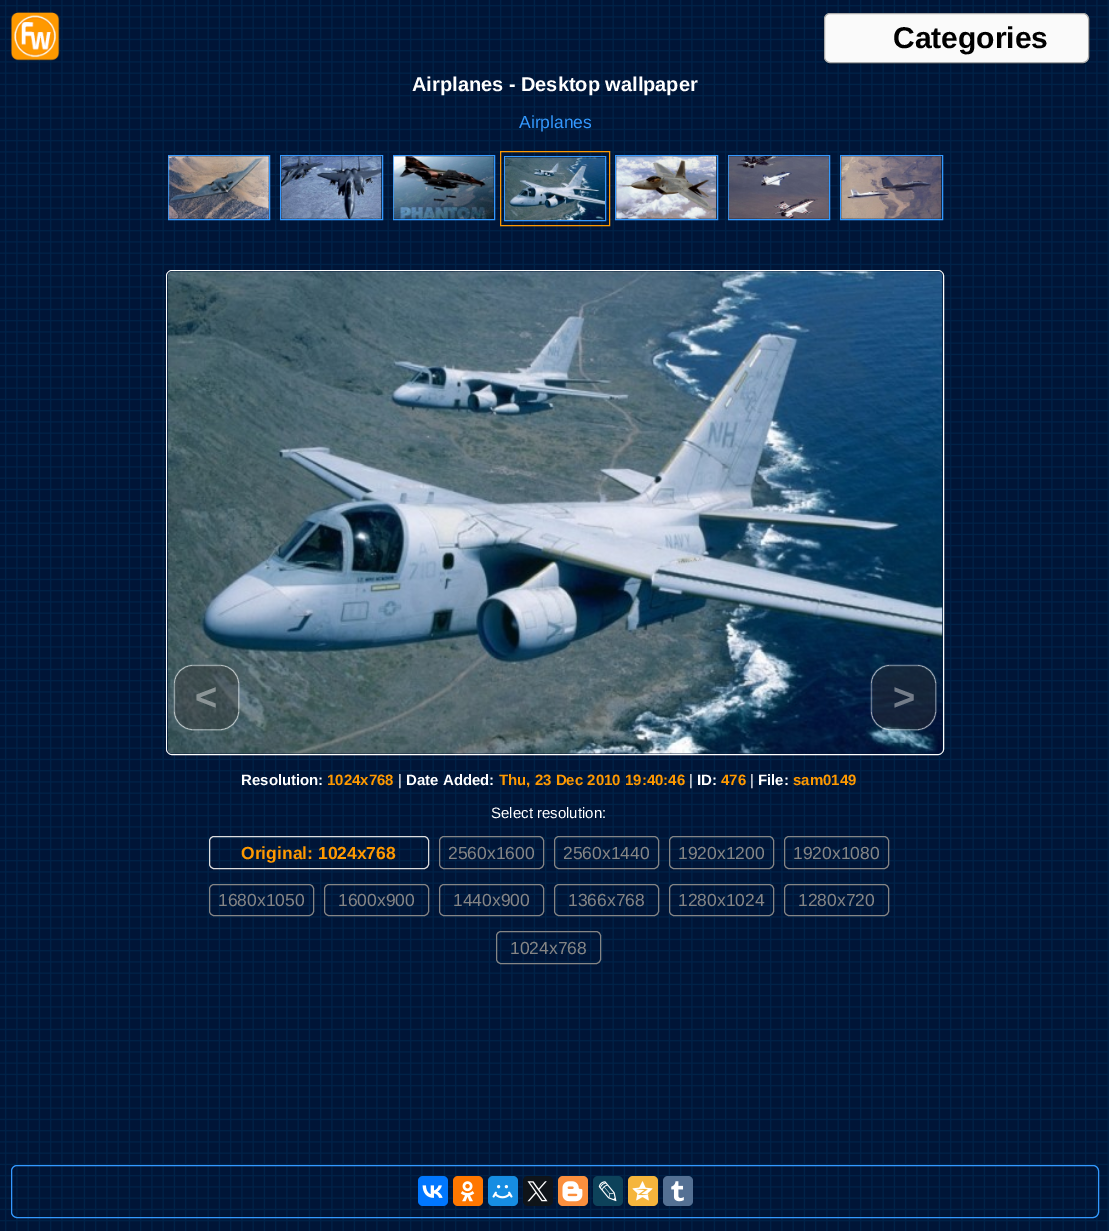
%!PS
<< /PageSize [1109 1231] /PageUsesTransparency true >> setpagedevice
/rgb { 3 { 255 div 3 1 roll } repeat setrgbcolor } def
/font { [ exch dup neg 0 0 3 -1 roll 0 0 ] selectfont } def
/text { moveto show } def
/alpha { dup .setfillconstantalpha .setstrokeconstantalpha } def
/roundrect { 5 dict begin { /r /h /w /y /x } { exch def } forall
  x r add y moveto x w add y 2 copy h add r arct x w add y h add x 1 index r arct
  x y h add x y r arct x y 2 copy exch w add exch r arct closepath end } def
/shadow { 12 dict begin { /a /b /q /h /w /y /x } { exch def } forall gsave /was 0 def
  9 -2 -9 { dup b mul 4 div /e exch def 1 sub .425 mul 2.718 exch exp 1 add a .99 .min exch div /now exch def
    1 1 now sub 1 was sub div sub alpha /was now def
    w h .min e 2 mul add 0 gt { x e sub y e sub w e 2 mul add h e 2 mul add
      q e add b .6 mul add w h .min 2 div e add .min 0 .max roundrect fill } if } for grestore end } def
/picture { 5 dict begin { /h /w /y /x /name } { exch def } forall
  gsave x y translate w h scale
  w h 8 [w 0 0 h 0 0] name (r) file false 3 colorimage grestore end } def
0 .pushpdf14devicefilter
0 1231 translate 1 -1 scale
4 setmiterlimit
255 255 255 rgb
0 0 1109 1231 rectfill
(img_01.rgb) 0 0 1109 1231 picture
(img_02.rgb) 11 12 49 49 picture
0 0 0 rgb
824 14 265 50 6 1 0.3 shadow
250 250 250 rgb
824.5 13.5 264 49 5.5 roundrect gsave fill grestore
170 170 170 rgb
stroke
51 153 255 rgb
168.5 155.5 101 64 rectstroke
(img_03.rgb) 168 156 101 63 picture
280.5 155.5 102 64 rectstroke
(img_04.rgb) 281 156 101 63 picture
393.5 155.5 101 64 rectstroke
(img_05.rgb) 393 156 101 63 picture
255 153 0 rgb
500.5 151.5 109 74 rectstroke
51 153 255 rgb
504.5 156.5 101 64 rectstroke
(img_06.rgb) 505 157 100 63 picture
615.5 155.5 102 64 rectstroke
(img_07.rgb) 616 156 101 63 picture
728.5 155.5 101 64 rectstroke
(img_08.rgb) 728 156 101 63 picture
840.5 155.5 102 64 rectstroke
(img_09.rgb) 841 156 101 63 picture
255 255 255 rgb
166.5 270.5 777 484 5.5 roundrect stroke
(img_10.rgb) 167 271 776 483 picture
gsave
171 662 moveto 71 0 rlineto 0 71 rlineto -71 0 rlineto closepath 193 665 moveto 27 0 rlineto 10.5 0 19 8.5 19 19 rcurveto 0 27 rlineto 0 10.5 -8.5 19 -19 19 rcurveto -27 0 rlineto -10.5 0 -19 -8.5 -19 -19 rcurveto 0 -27 rlineto 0 -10.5 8.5 -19 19 -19 rcurveto closepath eoclip newpath
174 665 65 65 19 0.5 0.4 shadow
grestore
0.4 alpha
174.5 665.5 64 64 18.5 roundrect stroke
gsave
175 666 63 63 18 roundrect clip newpath
51 51 51 rgb
175 666 63 63 19 roundrect fill
grestore
gsave
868 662 moveto 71 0 rlineto 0 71 rlineto -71 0 rlineto closepath 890 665 moveto 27 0 rlineto 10.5 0 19 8.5 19 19 rcurveto 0 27 rlineto 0 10.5 -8.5 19 -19 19 rcurveto -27 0 rlineto -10.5 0 -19 -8.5 -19 -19 rcurveto 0 -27 rlineto 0 -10.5 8.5 -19 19 -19 rcurveto closepath eoclip newpath
1 alpha
871 665 65 65 19 0.5 0.4 shadow
grestore
871.5 665.5 64 64 18.5 roundrect stroke
gsave
873 666 62 63 18 roundrect clip newpath
51 51 51 rgb
873 666 62 63 19 roundrect fill
grestore
1 alpha
221 221 221 rgb
209.5 836.5 219 32 4.5 roundrect stroke
133 133 133 rgb
439.5 836.5 104 32 4.5 roundrect stroke
554.5 836.5 104 32 4.5 roundrect stroke
669.5 836.5 104 32 4.5 roundrect stroke
784.5 836.5 104 32 4.5 roundrect stroke
209.5 884.5 104 31 4.5 roundrect stroke
324.5 884.5 104 31 4.5 roundrect stroke
439.5 884.5 104 31 4.5 roundrect stroke
554.5 884.5 104 31 4.5 roundrect stroke
669.5 884.5 104 31 4.5 roundrect stroke
784.5 884.5 104 31 4.5 roundrect stroke
496.5 931.5 104 32 4.5 roundrect stroke
51 153 255 rgb
11.5 1165.5 1087 52 5.5 roundrect stroke
0 119 255 rgb
418 1176 30 30 5 roundrect fill
(img_11.rgb) 422 1185 21 13 picture
255 119 0 rgb
453 1176 30 30 5 roundrect fill
(img_12.rgb) 460 1181 15 21 picture
22 141 226 rgb
488 1176 30 30 5 roundrect fill
(img_13.rgb) 492 1185 21 14 picture
15 20 25 rgb
523 1176 30 30 5 roundrect fill
(img_14.rgb) 527 1181 21 21 picture
251 143 61 rgb
558 1176 30 30 5 roundrect fill
(img_15.rgb) 562 1181 21 21 picture
13 66 90 rgb
593 1176 30 30 5 roundrect fill
(img_16.rgb) 598 1181 19 21 picture
245 181 60 rgb
628 1176 30 30 5 roundrect fill
(img_17.rgb) 632 1181 21 20 picture
84 112 147 rgb
663 1176 30 30 5 roundrect fill
(img_18.rgb) 671 1181 13 21 picture
/LiberationSans-Bold 30 font
0 0 0 rgb
(Categories) 893 48 text
/LiberationSans-Bold 20 font
255 255 255 rgb
(Airplanes - Desktop wallpaper) 412 91 text
/LiberationSans-Regular 17.5 font
51 153 255 rgb
(Airplanes) 519 128 text
/LiberationSans-Bold 38 font
139 148 150 rgb
(<) 195 710 text
115 124 137 rgb
(>) 893 710 text
/LiberationSans-Bold 15 font
255 255 255 rgb
(Resolution:) 241 785 text
255 153 0 rgb
(1024x768) 327 785 text
/LiberationSans-Regular 15 font
255 255 255 rgb
(|) 398 785 text
/LiberationSans-Bold 15 font
(Date Added:) 406 785 text
255 153 0 rgb
(Thu, 23 Dec 2010 19:40:46) 499 785 text
/LiberationSans-Regular 15 font
255 255 255 rgb
(|) 689 785 text
/LiberationSans-Bold 15 font
(ID:) 697 785 text
255 153 0 rgb
(476) 721 785 text
/LiberationSans-Regular 15 font
255 255 255 rgb
(|) 750 785 text
/LiberationSans-Bold 15 font
(File:) 758 785 text
255 153 0 rgb
(sam0149) 793 785 text
/LiberationSans-Regular 15 font
255 255 255 rgb
(Select resolution:) 491 818 text
/LiberationSans-Bold 17.5 font
255 153 0 rgb
(Original: 1024x768) 241 859 text
/LiberationSans-Regular 17.5 font
133 133 133 rgb
(2560x1600) 448 859 text
(2560x1440) 563 859 text
(1920x1200) 678 859 text
(1920x1080) 793 859 text
(1680x1050) 218 906 text
(1600x900) 338 906 text
(1440x900) 453 906 text
(1366x768) 568 906 text
(1280x1024) 678 906 text
(1280x720) 798 906 text
(1024x768) 510 954 text
.poppdf14devicefilter showpage
